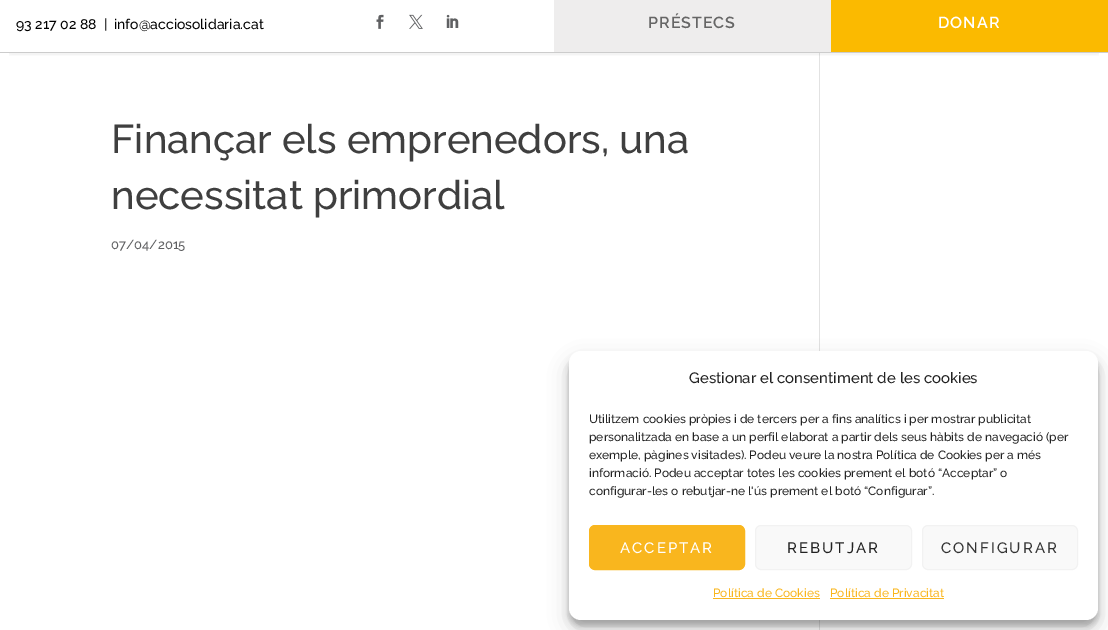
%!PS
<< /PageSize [1108 630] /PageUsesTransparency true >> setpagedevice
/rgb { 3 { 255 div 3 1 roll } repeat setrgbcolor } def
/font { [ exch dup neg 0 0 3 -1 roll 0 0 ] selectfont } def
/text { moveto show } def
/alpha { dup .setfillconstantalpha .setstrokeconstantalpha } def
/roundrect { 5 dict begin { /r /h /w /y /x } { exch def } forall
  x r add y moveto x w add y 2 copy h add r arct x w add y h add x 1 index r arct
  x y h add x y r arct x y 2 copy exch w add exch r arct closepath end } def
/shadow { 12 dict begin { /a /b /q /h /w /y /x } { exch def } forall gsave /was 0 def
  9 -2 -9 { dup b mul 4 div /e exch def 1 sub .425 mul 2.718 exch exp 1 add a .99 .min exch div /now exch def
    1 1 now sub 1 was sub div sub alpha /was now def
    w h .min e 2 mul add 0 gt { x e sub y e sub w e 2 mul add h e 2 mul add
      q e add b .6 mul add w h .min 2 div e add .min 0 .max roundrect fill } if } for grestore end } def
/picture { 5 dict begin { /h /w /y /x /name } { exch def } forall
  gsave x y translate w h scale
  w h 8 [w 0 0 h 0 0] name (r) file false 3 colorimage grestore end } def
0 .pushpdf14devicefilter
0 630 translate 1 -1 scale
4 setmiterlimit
255 255 255 rgb
0 0 1108 630 rectfill
226 226 226 rgb
819 53 1 577 rectfill
gsave
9 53 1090 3 rectclip
0 0 0 rgb
10 15 1088 33 0 5.5 0.3 shadow
grestore
204 204 204 rgb
0 52 1108 1 rectfill
(img_01.rgb) 376 14 8 15 picture
(img_02.rgb) 409 14 14 15 picture
(img_03.rgb) 446 14 13 14 picture
238 237 237 rgb
554 0 277 52 rectfill
251 186 0 rgb
831 0 277 52 rectfill
0 0 0 rgb
569 357 529 269 12 3 0.23 shadow
569 361 529 269 12 10 0.19 shadow
255 255 255 rgb
569 351 529 269 12 roundrect fill
249 182 30 rgb
589.5 525.5 155 44 5.5 roundrect gsave fill grestore
stroke
249 249 249 rgb
755.5 525.5 156 44 5.5 roundrect gsave fill grestore
242 242 242 rgb
stroke
249 249 249 rgb
922.5 525.5 155 44 5.5 roundrect gsave fill grestore
242 242 242 rgb
stroke
249 182 30 rgb
713 598 107 1 rectfill
830 598 114 1 rectfill
/Raleway-Medium 14 font
0 0 0 rgb
(93 217 02 88) 16 29 text
(|) 104 29 text
(info@acciosolidaria.cat) 114 29 text
/Raleway-SemiBold 16 font
102 102 102 rgb
648 28 moveto 1 0 (PRÉSTECS) ashow
255 255 255 rgb
938 28 moveto 1 0 (DONAR) ashow
/Raleway-Medium 40 font
63 63 63 rgb
(Finançar els emprenedors, una) 111 153 text
(necessitat primordial) 111 209 text
/Raleway-Medium 13 font
95 96 98 rgb
(07/04/2015) 111 249 text
/Raleway-Medium 15 font
34 34 34 rgb
(Gestionar el consentiment de les cookies) 689 383 text
/Raleway-Medium 12 font
(Utilitzem cookies pròpies i de tercers per a fins analítics i per mostrar publicitat) 589 423 text
(personalitzada en base a un perfil elaborat a partir dels seus hàbits de navegació \(per) 589 441 text
(exemple, pàgines visitades\). Podeu veure la nostra Política de Cookies per a més) 589 459 text
(informació. Podeu acceptar totes les cookies prement el botó “Acceptar” o) 589 477 text
(configurar-les o rebutjar-ne l'ús prement el botó “Configurar”.) 589 495 text
/Raleway-Medium 15 font
255 255 255 rgb
620 553 moveto 2 0 (ACCEPTAR) ashow
34 34 34 rgb
787 553 moveto 2 0 (REBUTJAR) ashow
51 51 51 rgb
941 553 moveto 2 0 (CONFIGURAR) ashow
/Raleway-Medium 12 font
249 182 30 rgb
(Política de Cookies) 713 597 text
(Política de Privacitat) 830 597 text
.poppdf14devicefilter showpage
